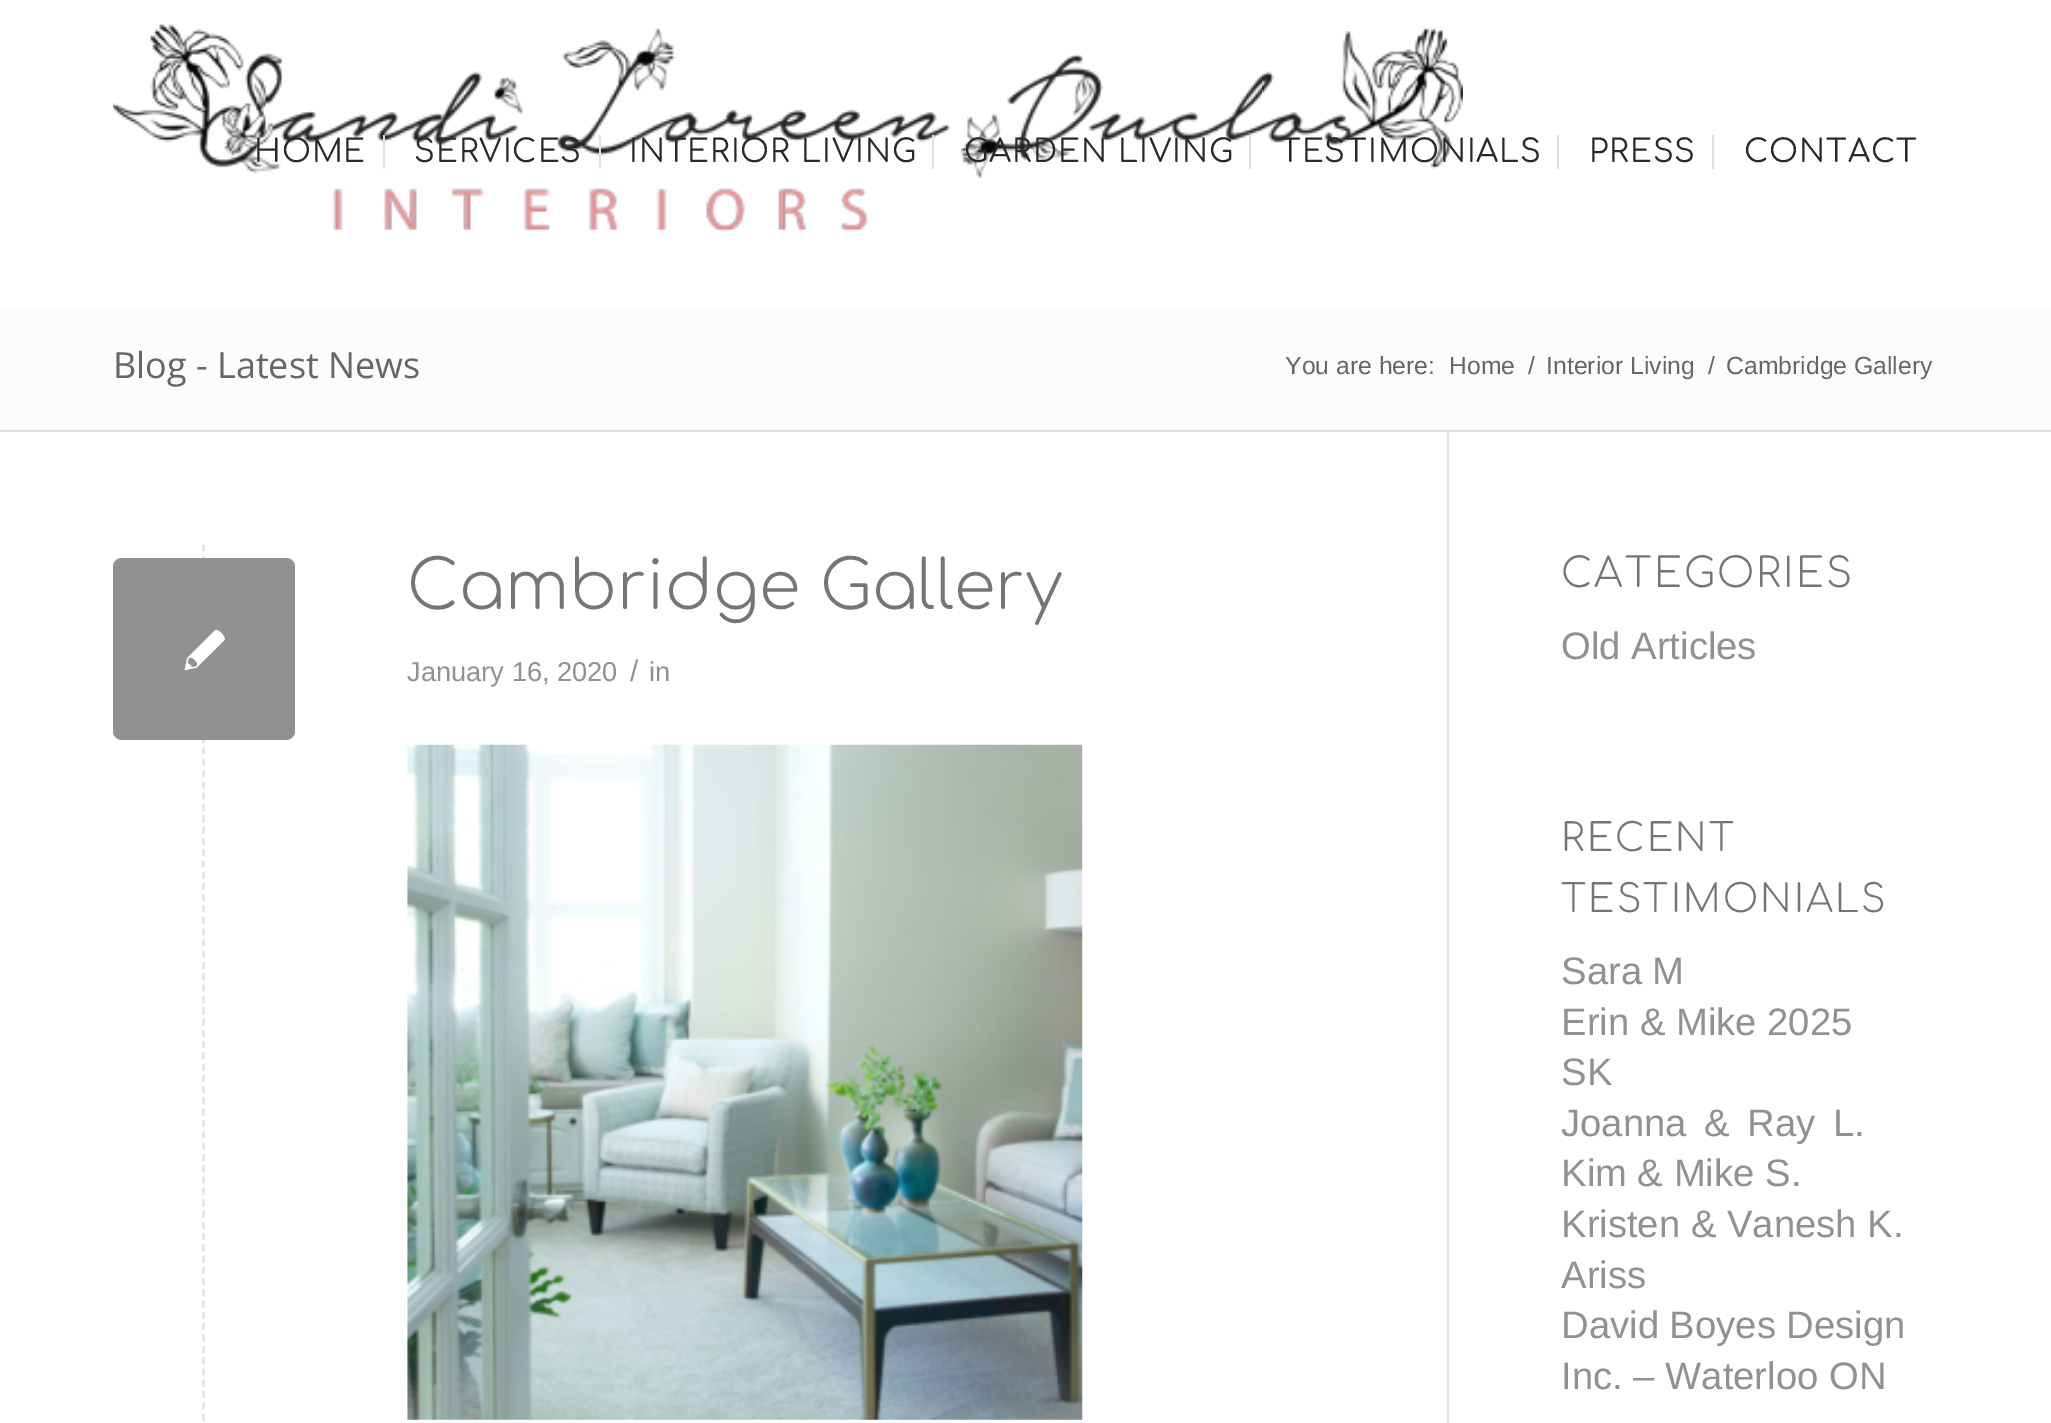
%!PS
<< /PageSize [2051 1423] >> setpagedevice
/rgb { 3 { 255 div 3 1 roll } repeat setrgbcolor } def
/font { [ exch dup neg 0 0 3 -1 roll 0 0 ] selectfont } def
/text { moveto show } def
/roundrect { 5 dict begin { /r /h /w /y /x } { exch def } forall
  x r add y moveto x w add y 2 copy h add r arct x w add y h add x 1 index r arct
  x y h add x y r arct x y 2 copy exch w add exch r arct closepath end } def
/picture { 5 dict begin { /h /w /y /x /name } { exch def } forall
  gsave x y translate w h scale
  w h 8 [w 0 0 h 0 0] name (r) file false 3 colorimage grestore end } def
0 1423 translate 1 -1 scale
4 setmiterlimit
255 255 255 rgb
0 0 2051 1423 rectfill
(img_01.rgb) 113 24 1350 208 picture
225 225 225 rgb
383 135 2 34 rectfill
599 135 2 34 rectfill
932 135 2 34 rectfill
1249 135 2 34 rectfill
1557 135 2 34 rectfill
1712 135 2 34 rectfill
252 252 252 rgb
0 306 2051 124 rectfill
225 225 225 rgb
0 430 2051 2 rectfill
1447 432 2 991 rectfill
2.2 setlinewidth
[6.75 4.54] 0 setdash
203.5 544.5 moveto 0 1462.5 rlineto stroke
(img_02.rgb) 407 744 676 676 picture
145 145 145 rgb
113 558 182 182 9 roundrect fill
(img_03.rgb) 184 629 41 42 picture
/Comfortaa-Regular 31.5 font
41 41 41 rgb
254 162 moveto 1 0 (HOME) ashow
414 162 moveto 1 0 (SERVICES) ashow
629 162 moveto 1 0 (INTERIOR LIVING) ashow
964 162 moveto 1 0 (GARDEN LIVING) ashow
1280 162 moveto 1 0 (TESTIMONIALS) ashow
1589 162 moveto 1 0 (PRESS) ashow
1744 162 moveto 1 0 (CONTACT) ashow
/OpenSans-Regular 36 font
102 102 102 rgb
(Blog - Latest News) 113 378 text
/LiberationSans-Regular 24.75 font
(You are here:) 1285 374 text
(Home) 1449 374 text
(/) 1528 374 text
(Interior Living) 1546 374 text
(/) 1708 374 text
(Cambridge Gallery) 1726 374 text
/Comfortaa-Light 67.5 font
117 117 117 rgb
(Cambridge Gallery) 407 609 text
/LiberationSans-Regular 27.25 font
145 145 145 rgb
(January 16, 2020) 407 681 text
/LiberationSans-Regular 30 font
(/) 630 681 text
/LiberationSans-Regular 27.25 font
(in) 649 681 text
/Comfortaa-Light 40.5 font
117 117 117 rgb
1561 587 moveto 2.25 0 (CATEGORIES) ashow
/LiberationSans-Regular 38.25 font
145 145 145 rgb
(Old Articles) 1561 659 text
/Comfortaa-Light 38.25 font
117 117 117 rgb
1561 851 moveto 2.25 0 (RECENT) ashow
1561 912 moveto 2.25 0 (TESTIMONIALS) ashow
/LiberationSans-Regular 38.25 font
145 145 145 rgb
(Sara M) 1561 984 text
(Erin & Mike 2025) 1561 1035 text
(SK) 1561 1085 text
1561 1136 moveto 7 0 32 (Joanna & Ray L.) widthshow
(Kim & Mike S.) 1561 1186 text
(Kristen & Vanesh K.) 1561 1237 text
(Ariss) 1561 1288 text
(David Boyes Design) 1561 1338 text
(Inc. – Waterloo ON) 1561 1389 text
showpage
